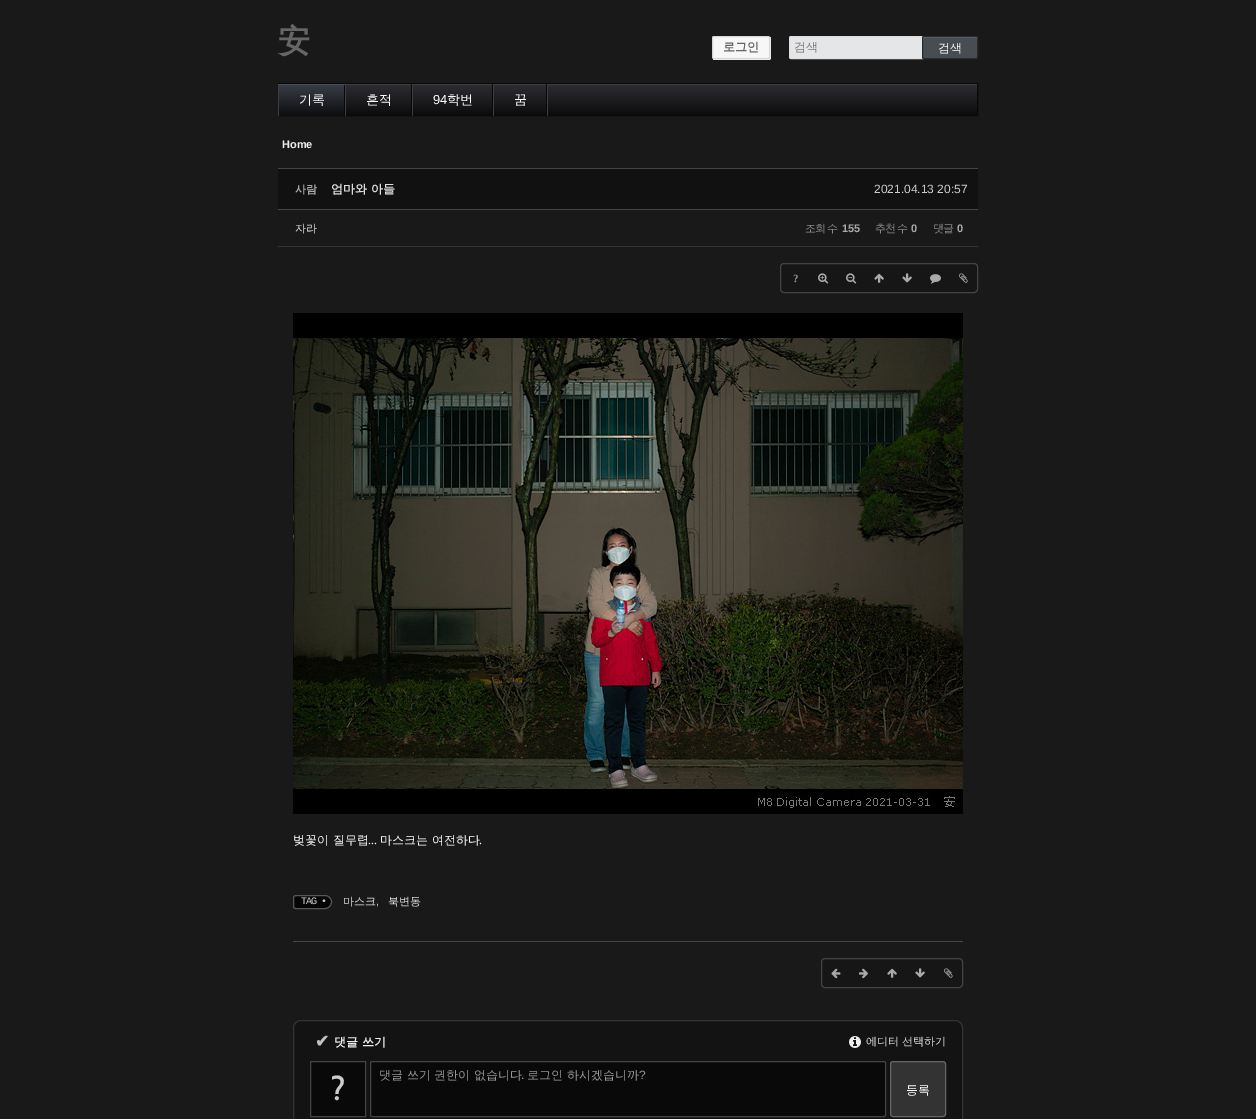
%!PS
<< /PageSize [1256 1119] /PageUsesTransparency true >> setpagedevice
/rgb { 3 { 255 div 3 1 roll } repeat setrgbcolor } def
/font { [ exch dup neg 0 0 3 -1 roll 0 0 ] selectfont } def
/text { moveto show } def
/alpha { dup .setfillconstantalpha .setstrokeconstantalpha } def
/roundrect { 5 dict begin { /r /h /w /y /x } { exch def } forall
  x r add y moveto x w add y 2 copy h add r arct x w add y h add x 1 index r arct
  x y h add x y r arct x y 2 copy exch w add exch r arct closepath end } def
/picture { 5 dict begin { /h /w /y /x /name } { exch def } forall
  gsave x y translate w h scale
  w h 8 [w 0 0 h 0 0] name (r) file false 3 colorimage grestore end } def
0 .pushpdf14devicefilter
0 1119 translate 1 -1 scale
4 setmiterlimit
25 25 25 rgb
0 0 1256 1119 rectfill
243 243 243 rgb
713 59 moveto 0 1 1 1 2 1 rcurveto 54 0 rlineto 1 0 2 -1 2 -2 rcurveto 0 -19 rlineto 0 -1 0 -2 -1 -2 rcurveto 0 14 rlineto 0 10 1 8 -11 8 rcurveto closepath fill
247 247 247 rgb
712.5 36.5 57 22 1.5 roundrect gsave fill grestore
212 216 219 rgb
stroke
229 230 232 rgb
789.5 36.5 135 22 1.5 roundrect gsave fill grestore
222 222 222 rgb
stroke
72 77 81 rgb
922 36 56 23 2 roundrect fill
109 113 116 rgb
924 38 moveto 52 0 rlineto 1 1 rlineto 0 -1 0 -2 -1 -2 rcurveto -43 0 rlineto -7 0 -10 -3 -10 3 rcurveto closepath fill
39 43 48 rgb
922.5 36.5 55 22 1.5 roundrect stroke
gsave 279 85 moveto 698 0 rlineto 0 30 rlineto -698 0 rlineto closepath clip newpath
<< /ShadingType 2 /ColorSpace /DeviceRGB /Coords [628 84 628 115] /Extend [true true] /Function << /FunctionType 2 /Domain [0 1] /C0 [0.18 0.176 0.196] /C1 [0.047 0.047 0.055] /N 1 >> >> shfill grestore
8 8 8 rgb
278.5 83.5 699 32 rectstroke
62 62 64 rgb
346 84 631 1 rectfill
0.98 alpha
gsave 279 85 moveto 67 0 rlineto 0 31 rlineto -67 0 rlineto closepath clip newpath
<< /ShadingType 2 /ColorSpace /DeviceRGB /Coords [312 85 312 116] /Extend [true true] /Function << /FunctionType 2 /Domain [0 1] /C0 [0.22 0.235 0.271] /C1 [0.047 0.051 0.059] /N 1 >> >> shfill grestore
1 alpha
73 79 91 rgb
278 84 68 1 rectfill
0.98 alpha
62 62 64 rgb
345 84 1 32 rectfill
1 alpha
61 61 63 rgb
278 84 1 32 rectfill
0.98 alpha
8 8 8 rgb
344 85 1 31 rectfill
62 62 64 rgb
412 84 1 32 rectfill
8 8 8 rgb
411 84 1 32 rectfill
62 62 64 rgb
493 84 1 32 rectfill
8 8 8 rgb
492 84 1 32 rectfill
62 62 64 rgb
547 84 1 32 rectfill
8 8 8 rgb
546 84 1 32 rectfill
1 alpha
17 17 17 rgb
278 169 700 40 rectfill
68 68 68 rgb
278 168 700 1 rectfill
278 209 700 1 rectfill
51 51 51 rgb
278 246 700 1 rectfill
22 22 22 rgb
780.5 263.5 197 29 3.5 roundrect gsave fill grestore
68 68 68 rgb
stroke
(img_01.rgb) 818 273 11 11 picture
(img_02.rgb) 846 273 11 11 picture
(img_03.rgb) 874 273 10 10 picture
(img_04.rgb) 902 273 10 10 picture
(img_05.rgb) 930 274 11 10 picture
(img_06.rgb) 959 273 9 10 picture
(img_07.rgb) 293 313 670 501 picture
5 5 5 rgb
296 895.5 moveto 29 0 rlineto 3.5 0 6.5 3 6.5 6.5 rcurveto 0 3.5 -3 6.5 -6.5 6.5 rcurveto -29 0 rlineto -1.5 0 -2.5 -1 -2.5 -2.5 rcurveto 0 -8 rlineto 0 -1.5 1 -2.5 2.5 -2.5 rcurveto closepath gsave fill grestore
87 87 87 rgb
stroke
68 68 68 rgb
293 941 670 1 rectfill
22 22 22 rgb
821.5 958.5 141 29 3.5 roundrect gsave fill grestore
68 68 68 rgb
stroke
(img_08.rgb) 831 968 10 11 picture
(img_09.rgb) 859 968 9 11 picture
(img_03.rgb) 887 968 10 10 picture
(img_04.rgb) 915 968 10 10 picture
(img_06.rgb) 944 968 9 10 picture
19 19 19 rgb
293.5 1020.5 669 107 7.5 roundrect gsave fill grestore
51 51 51 rgb
stroke
(img_10.rgb) 849 1036 12 12 picture
9 9 9 rgb
310.5 1061.5 moveto 55 0 rlineto 0 55 rlineto -55 0 rlineto closepath gsave fill grestore
68 68 68 rgb
stroke
9 9 9 rgb
370.5 1061.5 515 55 1.5 roundrect gsave fill grestore
68 68 68 rgb
stroke
51 51 51 rgb
890.5 1061.5 55 55 2.5 roundrect gsave fill grestore
102 102 102 rgb
stroke
/WenQuanYiZenHei-Bold 32 font
(安) 278 52 text
/WenQuanYiZenHei-Bold 12 font
(로그인) 723 51 text
/WenQuanYiZenHei-Medium 12 font
117 117 117 rgb
(검색) 794 51 text
255 255 255 rgb
(검색) 938 52 text
/WenQuanYiZenHei-Medium 13 font
(기록) 299 104 text
(흔적) 366 104 text
/LiberationSans-Regular 13 font
(94) 433 104 text
/WenQuanYiZenHei-Medium 13 font
(학번) 447 104 text
(꿈) 514 104 text
/LiberationSans-Bold 11 font
238 238 238 rgb
(Home) 282 148 text
/WenQuanYiZenHei-Bold 11 font
170 170 170 rgb
(사람) 295 193 text
/WenQuanYiZenHei-Bold 12 font
221 221 221 rgb
(엄마와 아들) 331 193 text
/LiberationSans-Regular 12 font
204 204 204 rgb
(2021.04.13 20:57) 874 193 text
/WenQuanYiZenHei-Medium 11 font
221 221 221 rgb
(자라) 295 232 text
136 136 136 rgb
805 232 moveto -1 0 (조회 수) ashow
/LiberationSans-Bold 11 font
170 170 170 rgb
(155) 842 232 text
/WenQuanYiZenHei-Medium 11 font
136 136 136 rgb
875 232 moveto -1 0 (추천 수) ashow
/LiberationSans-Bold 11 font
170 170 170 rgb
(0) 911 232 text
/WenQuanYiZenHei-Medium 11 font
136 136 136 rgb
933 232 moveto -1 0 (댓글) ashow
/LiberationSans-Bold 11 font
170 170 170 rgb
(0) 957 232 text
/LiberationSerif-Bold 11 font
153 153 153 rgb
793 282 moveto -1 0 (?) ashow
/WenQuanYiZenHei-Medium 12 font
255 255 255 rgb
(벚꽃이 질무렵) 293 844 text
/LiberationSerif-Regular 12 font
(...) 368 844 text
/WenQuanYiZenHei-Medium 12 font
(마스크는 여전하다) 380 844 text
/LiberationSerif-Regular 12 font
(.) 479 844 text
/LiberationMono-Regular 10 font
204 204 204 rgb
301 904 moveto -1 0 (TAG •) ashow
/WenQuanYiZenHei-Medium 11 font
221 221 221 rgb
(마스크) 343 905 text
/LiberationSans-Regular 11 font
204 204 204 rgb
(,) 376 905 text
/WenQuanYiZenHei-Medium 11 font
221 221 221 rgb
(북변동) 388 905 text
/DejaVuSans-Bold 17 font
194 194 194 rgb
(✔) 315 1047 text
/WenQuanYiZenHei-Bold 12 font
238 238 238 rgb
(댓글 쓰기) 334 1046 text
/WenQuanYiZenHei-Medium 11 font
221 221 221 rgb
(에디터 선택하기) 866 1045 text
/NanumGothic-Bold 32 font
204 204 204 rgb
(?) 329 1100 text
/WenQuanYiZenHei-Medium 12 font
153 153 153 rgb
(댓글 쓰기 권한이 없습니다) 379 1079 text
/LiberationSans-Regular 12 font
(.) 521 1079 text
/WenQuanYiZenHei-Medium 12 font
(로그인 하시겠습니까) 527 1079 text
/LiberationSans-Regular 12 font
(?) 639 1079 text
/WenQuanYiZenHei-Medium 12 font
255 255 255 rgb
(등록) 906 1094 text
.poppdf14devicefilter showpage
